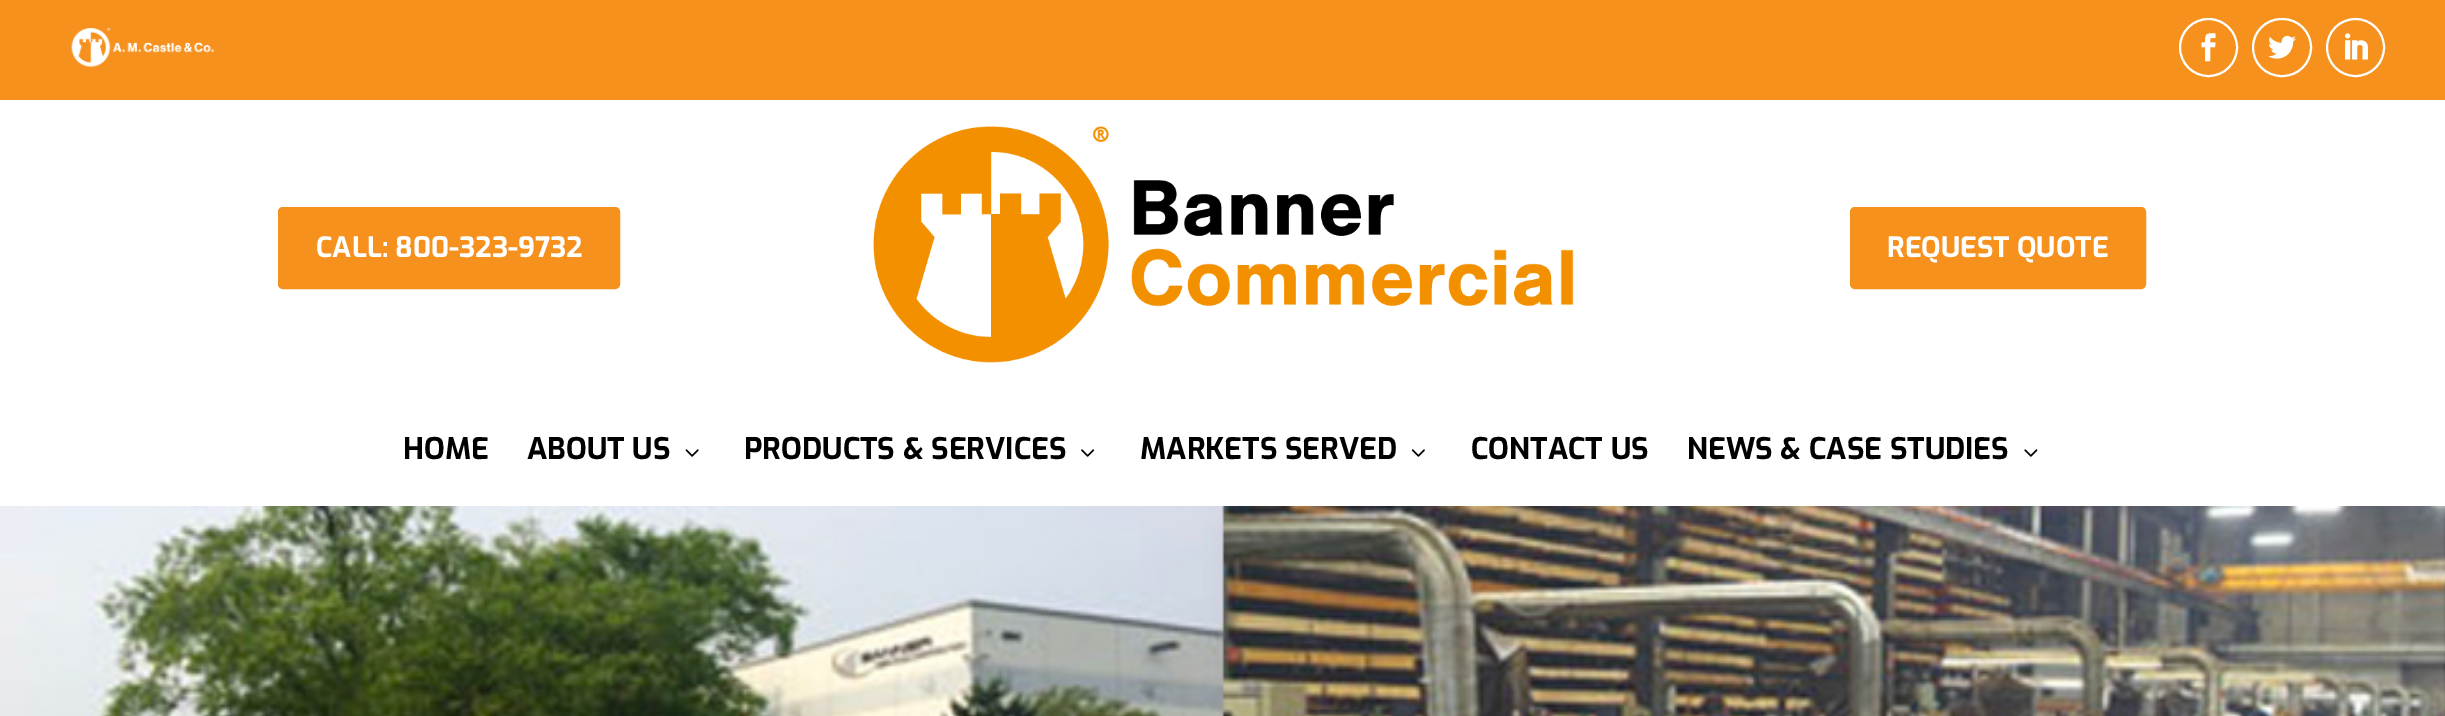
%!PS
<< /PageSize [2445 716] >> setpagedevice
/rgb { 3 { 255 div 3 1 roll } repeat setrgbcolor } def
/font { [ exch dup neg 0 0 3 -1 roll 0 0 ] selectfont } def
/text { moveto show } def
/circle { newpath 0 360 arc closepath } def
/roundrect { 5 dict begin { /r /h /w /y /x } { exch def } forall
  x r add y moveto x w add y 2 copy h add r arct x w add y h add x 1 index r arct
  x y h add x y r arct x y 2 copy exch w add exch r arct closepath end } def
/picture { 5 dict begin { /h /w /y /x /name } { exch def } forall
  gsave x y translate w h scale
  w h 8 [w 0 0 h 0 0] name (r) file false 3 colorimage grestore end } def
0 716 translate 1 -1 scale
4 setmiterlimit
255 255 255 rgb
0 0 2445 716 rectfill
246 145 30 rgb
0 0 2445 100 rectfill
(img_01.rgb) 71 28 143 39 picture
255 255 255 rgb
2 setlinewidth
2208.5 47.5 28.5 circle stroke
(img_02.rgb) 2201 33 15 29 picture
2253 19 58 57 28.5 roundrect stroke
(img_03.rgb) 2268 35 28 24 picture
2355.5 47.5 28.5 circle stroke
(img_04.rgb) 2345 33 23 27 picture
246 145 30 rgb
282.5 211.5 333 73 0.5 roundrect gsave fill grestore
9 setlinewidth
stroke
(img_05.rgb) 873 126 701 237 picture
1854.5 211.5 287 73 0.5 roundrect gsave fill grestore
stroke
(img_06.rgb) 685 449 14 8 picture
(img_07.rgb) 1081 449 14 8 picture
(img_08.rgb) 1411 449 14 8 picture
(img_09.rgb) 2024 449 14 8 picture
(img_10.rgb) 0 506 2445 210 picture
/Exo-Bold 28 font
255 255 255 rgb
(CALL: 800-323-9732) 316 257 text
(REQUEST QUOTE) 1887 257 text
/Exo-Bold 29.75 font
0 0 0 rgb
(HOME) 403 459 text
(ABOUT US) 527 459 text
(PRODUCTS & SERVICES) 744 459 text
(MARKETS SERVED) 1140 459 text
(CONTACT US) 1471 459 text
(NEWS & CASE STUDIES) 1687 459 text
showpage
